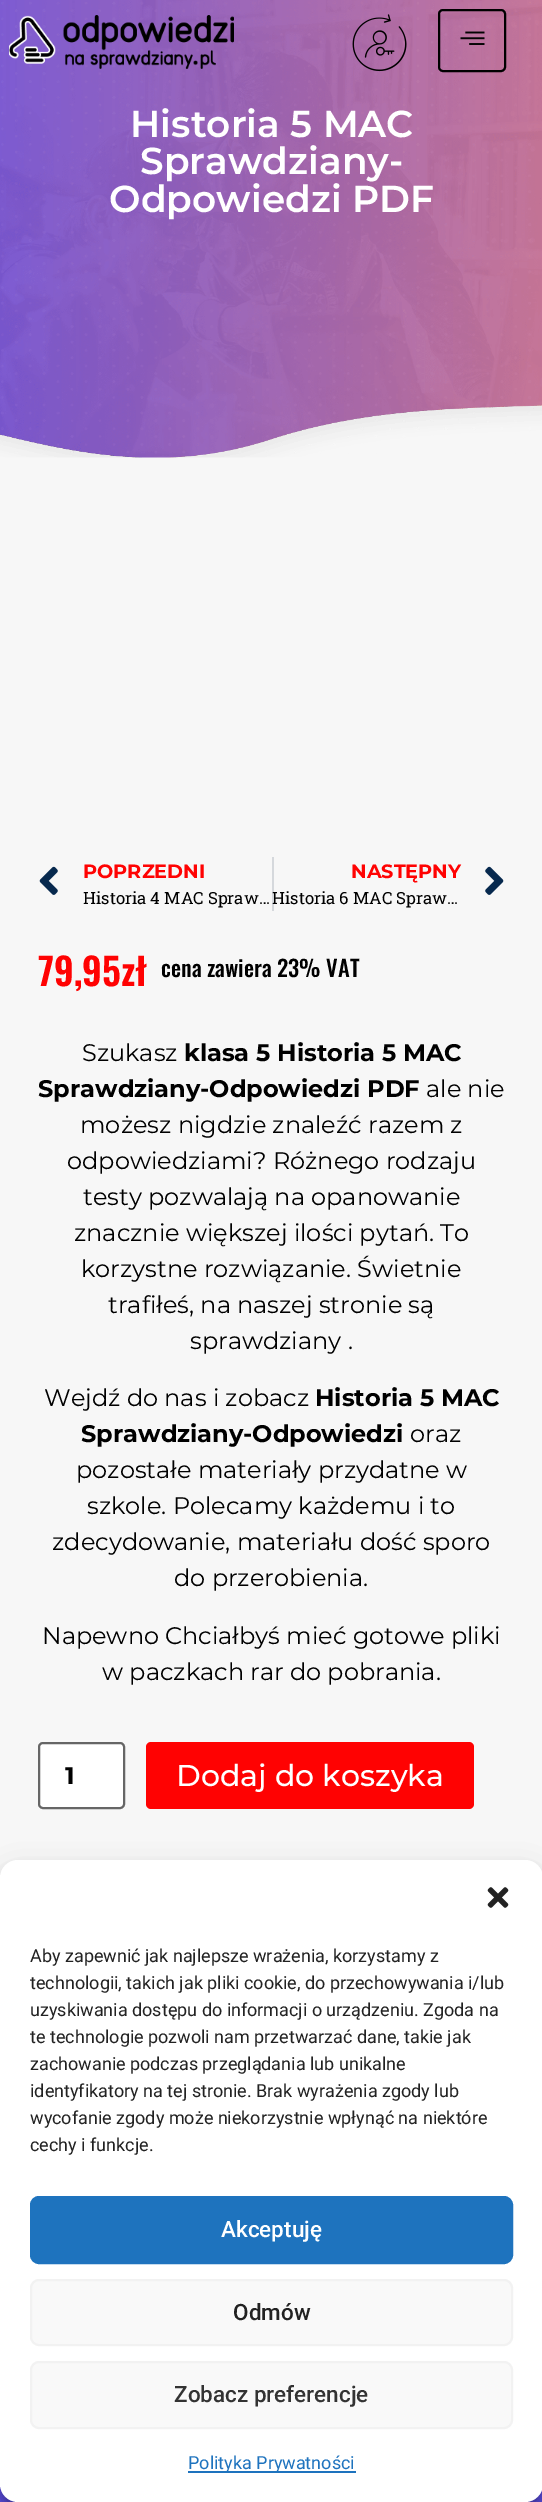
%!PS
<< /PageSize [542 2502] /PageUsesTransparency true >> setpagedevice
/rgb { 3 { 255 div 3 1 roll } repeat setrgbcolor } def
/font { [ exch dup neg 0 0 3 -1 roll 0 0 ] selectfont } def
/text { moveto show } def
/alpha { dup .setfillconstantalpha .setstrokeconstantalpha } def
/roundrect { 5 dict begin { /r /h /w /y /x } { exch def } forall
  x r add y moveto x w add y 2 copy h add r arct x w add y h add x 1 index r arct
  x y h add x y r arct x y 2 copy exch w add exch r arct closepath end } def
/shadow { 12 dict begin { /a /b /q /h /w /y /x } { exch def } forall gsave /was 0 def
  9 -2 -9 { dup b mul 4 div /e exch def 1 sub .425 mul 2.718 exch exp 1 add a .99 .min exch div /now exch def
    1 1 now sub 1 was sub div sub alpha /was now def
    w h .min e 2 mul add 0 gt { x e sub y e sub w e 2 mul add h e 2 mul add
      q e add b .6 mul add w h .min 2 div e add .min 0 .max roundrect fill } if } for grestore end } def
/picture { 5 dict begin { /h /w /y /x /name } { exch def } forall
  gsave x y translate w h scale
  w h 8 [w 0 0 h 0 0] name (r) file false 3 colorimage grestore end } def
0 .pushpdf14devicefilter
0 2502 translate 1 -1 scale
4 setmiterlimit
255 255 255 rgb
0 0 542 2502 rectfill
247 247 247 rgb
0 71 542 1807 rectfill
(img_04.rgb) 0 0 542 458 picture
(img_01.rgb) 9 15 225 54 picture
(img_02.rgb) 352 14 55 58 picture
0 0 0 rgb
2 setlinewidth
439 10 66 61 4 roundrect stroke
(img_03.rgb) 460 31 25 14 picture
(img_05.rgb) 39 866 19 29 picture
213 216 220 rgb
272 857 2 54 rectfill
(img_06.rgb) 485 866 19 29 picture
255 255 255 rgb
39 1743 85 65 4 roundrect gsave fill grestore
102 102 102 rgb
stroke
255 2 2 rgb
146 1742 328 67 5 roundrect fill
(img_08.rgb) 0 2484 542 18 picture
0 0 0 rgb
0 1869 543 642 18 4.5 0.23 shadow
0 1875 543 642 18 15 0.19 shadow
255 255 255 rgb
0 1860 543 642 18 roundrect fill
(img_07.rgb) 487 1887 22 21 picture
30 115 190 rgb
31 2197 481 66 8 roundrect gsave fill grestore
stroke
249 249 249 rgb
31 2280 481 65 8 roundrect gsave fill grestore
242 242 242 rgb
stroke
249 249 249 rgb
31 2362 481 66 8 roundrect gsave fill grestore
242 242 242 rgb
stroke
30 115 190 rgb
188 2471 168 2 rectfill
/Montserrat-SemiBold 37.5 font
255 255 255 rgb
(Historia 5 MAC) 130 137 text
(Sprawdziany-) 140 174 text
(Odpowiedzi PDF) 109 212 text
/Montserrat-Bold 19.25 font
255 2 2 rgb
(POPRZEDNI) 83 878 text
/RobotoSlab-Regular 16.75 font
0 0 0 rgb
(Historia 4 MAC Spraw…) 83 904 text
/Montserrat-Bold 19.25 font
255 2 2 rgb
(NASTĘPNY) 351 878 text
/RobotoSlab-Regular 16.75 font
0 0 0 rgb
(Historia 6 MAC Spraw…) 272 904 text
/Oswald-SemiBold 37.5 font
255 2 2 rgb
(79,95zł) 38 986 text
/Oswald-Medium 22.5 font
0 0 0 rgb
(cena zawiera 23% VAT) 161 977 text
/Montserrat-Regular 24 font
(Szukasz) 82 1061 text
/Montserrat-Bold 24 font
(klasa 5 Historia 5 MAC) 184 1061 text
(Sprawdziany-Odpowiedzi PDF) 38 1097 text
/Montserrat-Regular 24 font
(ale nie) 426 1097 text
(możesz nigdzie znaleźć razem z) 80 1133 text
(odpowiedziami? Różnego rodzaju) 67 1169 text
(testy pozwalają na opanowanie) 83 1205 text
(znacznie większej ilości pytań. To) 74 1241 text
(korzystne rozwiązanie. Świetnie) 81 1277 text
(trafiłeś, na naszej stronie są) 108 1313 text
(sprawdziany .) 190 1349 text
(Wejdź do nas i zobacz) 44 1406 text
/Montserrat-Bold 24 font
(Historia 5 MAC) 315 1406 text
(Sprawdziany-Odpowiedzi) 81 1442 text
/Montserrat-Regular 24 font
(oraz) 410 1442 text
(pozostałe materiały przydatne w) 76 1478 text
(szkole. Polecamy każdemu i to) 87 1514 text
(zdecydowanie, materiału dość sporo) 52 1550 text
(do przerobienia.) 174 1586 text
(Napewno Chciałbyś mieć gotowe pliki) 42 1644 text
(w paczkach rar do pobrania.) 102 1680 text
/Montserrat-Bold 24 font
(1) 65 1784 text
/Montserrat-Medium 30 font
255 255 255 rgb
(Dodaj do koszyka) 176 1786 text
/Roboto-Regular 18 font
34 34 34 rgb
(Aby zapewnić jak najlepsze wrażenia, korzystamy z) 30 1962 text
(technologii, takich jak pliki cookie, do przechowywania i/lub) 30 1989 text
(uzyskiwania dostępu do informacji o urządzeniu. Zgoda na) 30 2016 text
(te technologie pozwoli nam przetwarzać dane, takie jak) 30 2043 text
(zachowanie podczas przeglądania lub unikalne) 30 2070 text
(identyfikatory na tej stronie. Brak wyrażenia zgody lub) 30 2097 text
(wycofanie zgody może niekorzystnie wpłynąć na niektóre) 30 2124 text
(cechy i funkcje.) 30 2151 text
/Roboto-Medium 22.5 font
255 255 255 rgb
(Akceptuję) 221 2237 text
34 34 34 rgb
(Odmów) 233 2320 text
51 51 51 rgb
(Zobacz preferencje) 174 2402 text
/Roboto-Regular 18 font
30 115 190 rgb
(Polityka Prywatności) 188 2469 text
.poppdf14devicefilter showpage
